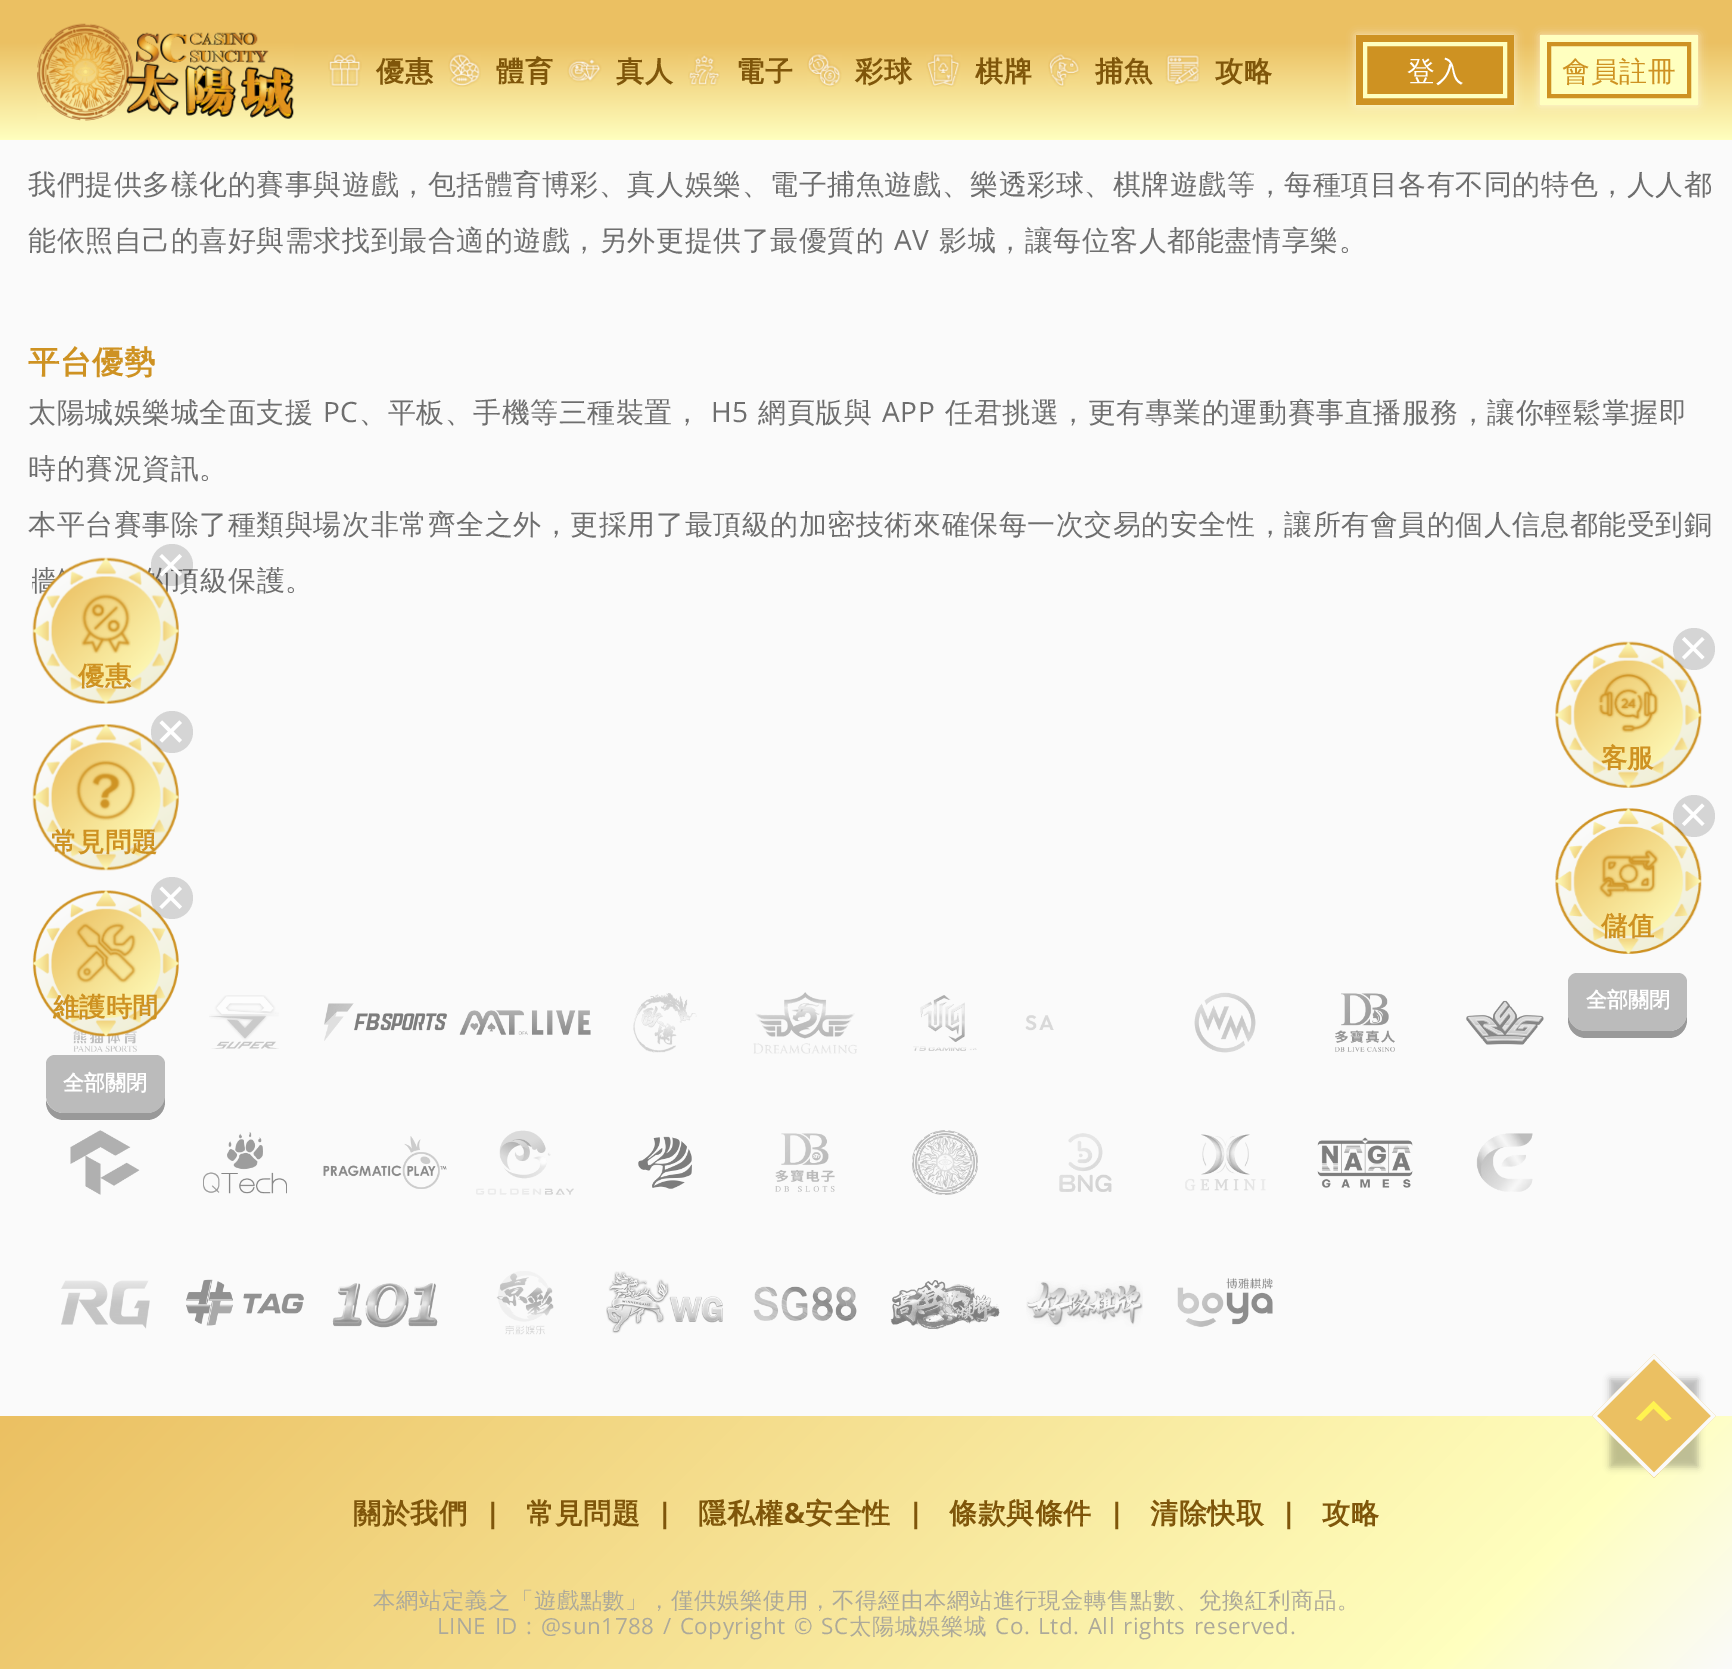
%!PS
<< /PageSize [1732 1669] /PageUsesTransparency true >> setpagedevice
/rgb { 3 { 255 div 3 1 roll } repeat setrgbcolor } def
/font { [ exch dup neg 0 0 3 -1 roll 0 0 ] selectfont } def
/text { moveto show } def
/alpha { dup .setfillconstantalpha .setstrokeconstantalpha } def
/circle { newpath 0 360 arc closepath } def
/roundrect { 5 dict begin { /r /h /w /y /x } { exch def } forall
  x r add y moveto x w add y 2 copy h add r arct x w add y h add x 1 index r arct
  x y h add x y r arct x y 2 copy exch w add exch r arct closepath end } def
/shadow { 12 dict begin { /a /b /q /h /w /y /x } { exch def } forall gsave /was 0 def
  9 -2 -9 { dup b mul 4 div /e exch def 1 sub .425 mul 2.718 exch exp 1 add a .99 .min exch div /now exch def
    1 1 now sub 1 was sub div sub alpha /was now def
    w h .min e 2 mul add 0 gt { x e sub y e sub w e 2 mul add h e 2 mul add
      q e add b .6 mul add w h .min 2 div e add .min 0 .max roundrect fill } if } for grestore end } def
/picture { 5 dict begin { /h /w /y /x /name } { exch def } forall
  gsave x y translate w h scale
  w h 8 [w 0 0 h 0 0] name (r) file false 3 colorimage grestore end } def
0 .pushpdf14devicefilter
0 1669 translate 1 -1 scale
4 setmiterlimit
250 250 250 rgb
0 0 1732 1669 rectfill
gsave 0 0 moveto 1732 0 rlineto 0 140 rlineto -1732 0 rlineto closepath clip newpath
<< /ShadingType 2 /ColorSpace /DeviceRGB /Coords [866 0 866 140] /Extend [true true] /Function << /FunctionType 3 /Domain [0 1] /Functions [<< /FunctionType 2 /Domain [0 1] /C0 [0.922 0.753 0.384] /C1 [0.922 0.753 0.384] /N 1 >> << /FunctionType 2 /Domain [0 1] /C0 [0.922 0.753 0.384] /C1 [1 1 0.749] /N 1 >>] /Bounds [0.3] /Encode [0 1 0 1] >> >> shfill grestore
(img_01.rgb) 37 23 257 98 picture
(img_02.rgb) 328 53 34 34 picture
(img_03.rgb) 448 53 33 34 picture
(img_04.rgb) 567 58 35 25 picture
(img_05.rgb) 688 54 32 32 picture
(img_06.rgb) 807 53 35 34 picture
(img_07.rgb) 926 53 35 34 picture
(img_08.rgb) 1048 53 32 34 picture
(img_09.rgb) 1165 54 35 32 picture
255 255 255 rgb
1356 35 158 70 0 4.5 0.6 shadow
206 146 34 rgb
1356 35 158 70 rectfill
255 255 191 rgb
4 setlinewidth
1365 44 140 52 rectstroke
255 255 255 rgb
1540 35 158 70 0 4.5 0.6 shadow
255 255 191 rgb
1540 35 158 70 rectfill
206 146 34 rgb
1549 44 140 52 rectstroke
(img_12.rgb) 32 724 147 147 picture
0.15 alpha
0 0 0 rgb
172 732 21 circle fill
1 alpha
255 255 255 rgb
162 720.5 moveto 20 19.5 rlineto -2.5 2.5 rlineto -20 -19.5 rlineto closepath fill
159.5 740 moveto 20 -19.5 rlineto 2.5 2.5 rlineto -20 19.5 rlineto closepath fill
(img_13.rgb) 75 760 62 61 picture
(img_30.rgb) 73 1030 64 22 picture
(img_14.rgb) 32 890 147 147 picture
0.15 alpha
0 0 0 rgb
172 898 21 circle fill
1 alpha
255 255 255 rgb
162 886.5 moveto 20 20 rlineto -2.5 2.5 rlineto -20 -20 rlineto closepath fill
159.5 906.5 moveto 20 -20 rlineto 2.5 2.5 rlineto -20 20 rlineto closepath fill
(img_15.rgb) 75 922 62 62 picture
153 153 153 rgb
46 1100 moveto 0 2 rlineto 0 10 8 18 18 18 rcurveto 83 0 rlineto 10 0 18 -8 18 -18 rcurveto 0 -31 rlineto -1 -3 rlineto 0 28 rlineto 0 9 -7 17 -17 17 rcurveto -84 0 rlineto -8 0 -15 -6 -17 -13 rcurveto closepath fill
187 187 187 rgb
55 1055 moveto 101 0 rlineto 5 0 9 4 9 9 rcurveto 0 31 rlineto 0 10 -8 18 -18 18 rcurveto -83 0 rlineto -10 0 -18 -8 -18 -18 rcurveto 0 -31 rlineto 0 -5 4 -9 9 -9 rcurveto closepath fill
(img_16.rgb) 1555 641 147 147 picture
0.15 alpha
0 0 0 rgb
1694 649 21 circle fill
1 alpha
255 255 255 rgb
1684.5 637 moveto 20 20 rlineto -2.5 2.5 rlineto -20 -20 rlineto closepath fill
1682 657 moveto 20 -20 rlineto 2.5 2.5 rlineto -20 20 rlineto closepath fill
(img_17.rgb) 1598 672 61 61 picture
(img_18.rgb) 1555 808 147 146 picture
0.15 alpha
0 0 0 rgb
1694 816 21 circle fill
1 alpha
255 255 255 rgb
1684.5 803.5 moveto 20 20 rlineto -2.5 2.5 rlineto -20 -20 rlineto closepath fill
1682 823.5 moveto 20 -20 rlineto 2.5 2.5 rlineto -20 20 rlineto closepath fill
(img_19.rgb) 1598 849 61 50 picture
153 153 153 rgb
1568 1013 moveto 0 7 rlineto 0 10 8 18 18 18 rcurveto 83 0 rlineto 10 0 18 -8 18 -18 rcurveto 0 -7 rlineto 0 10 -8 18 -17 18 rcurveto -84 0 rlineto -10 0 -18 -8 -18 -18 rcurveto closepath fill
187 187 187 rgb
1577 973 moveto 101 0 rlineto 5 0 9 4 9 9 rcurveto 0 31 rlineto 0 10 -8 18 -18 18 rcurveto -83 0 rlineto -10 0 -18 -8 -18 -18 rcurveto 0 -31 rlineto 0 -5 4 -9 9 -9 rcurveto closepath fill
(img_20.rgb) 209 995 70 54 picture
(img_21.rgb) 324 1003 123 38 picture
(img_22.rgb) 459 1010 132 25 picture
(img_23.rgb) 633 993 64 60 picture
(img_24.rgb) 753 992 104 62 picture
(img_25.rgb) 913 995 64 56 picture
(img_26.rgb) 1025 1015 29 16 picture
(img_27.rgb) 1194 992 62 61 picture
(img_28.rgb) 1335 993 60 59 picture
(img_29.rgb) 1466 1000 78 45 picture
(img_31.rgb) 70 1130 70 65 picture
(img_32.rgb) 203 1132 84 62 picture
(img_33.rgb) 323 1136 124 53 picture
(img_34.rgb) 476 1130 98 65 picture
(img_35.rgb) 638 1136 54 53 picture
(img_36.rgb) 775 1133 60 59 picture
(img_37.rgb) 912 1130 66 65 picture
(img_38.rgb) 1059 1133 53 59 picture
(img_39.rgb) 1185 1134 81 57 picture
(img_40.rgb) 1317 1137 96 51 picture
(img_41.rgb) 1476 1133 57 59 picture
(img_42.rgb) 61 1280 89 49 picture
(img_43.rgb) 186 1279 118 47 picture
(img_44.rgb) 332 1283 106 45 picture
(img_45.rgb) 496 1271 58 64 picture
(img_46.rgb) 606 1271 117 63 picture
(img_47.rgb) 753 1286 104 35 picture
(img_48.rgb) 890 1280 110 50 picture
(img_49.rgb) 1026 1281 117 46 picture
(img_50.rgb) 1177 1278 96 49 picture
gsave 0 1416 moveto 1732 0 rlineto 0 253 rlineto -1732 0 rlineto closepath clip newpath
<< /ShadingType 2 /ColorSpace /DeviceRGB /Coords [370 1046 1363 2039] /Extend [true true] /Function << /FunctionType 3 /Domain [0 1] /Functions [<< /FunctionType 2 /Domain [0 1] /C0 [0.922 0.753 0.384] /C1 [1 1 0.749] /N 1 >> << /FunctionType 2 /Domain [0 1] /C0 [1 1 0.749] /C1 [0.98 0.98 0.98] /N 1 >>] /Bounds [0.85] /Encode [0 1 0 1] >> >> shfill grestore
0 0 0 rgb
1610 1379 88 88 0 3.5 0.25 shadow
235 192 98 rgb
1654 1354 moveto 62 62 rlineto -62 62 rlineto -62 -62 rlineto closepath fill
250 250 250 rgb
3.5 setlinewidth
1654 1356.5 moveto 59.5 59.5 rlineto -59.5 59 rlineto -59.5 -59 rlineto closepath stroke
255 243 80 rgb
1666.5 1421 moveto -13 -12.5 rlineto -12.5 12.5 rlineto -5 -2.5 rlineto 17.5 -17.5 rlineto 18 17.5 rlineto closepath fill
/WenQuanYiZenHei-Bold 28 font
127 86 10 rgb
376 81 moveto 0.55 0 (優惠) ashow
496 81 moveto 0.55 0 (體育) ashow
616 81 moveto 0.55 0 (真人) ashow
736 81 moveto 0.55 0 (電子) ashow
855 81 moveto 0.55 0 (彩球) ashow
975 81 moveto 0.55 0 (棋牌) ashow
1095 81 moveto 0.55 0 (捕魚) ashow
1215 81 moveto 0.55 0 (攻略) ashow
/WenQuanYiZenHei-Medium 28 font
255 255 255 rgb
1407 81 moveto 0.55 0 (登入) ashow
206 146 34 rgb
1562 81 moveto 0.55 0 (會員註冊) ashow
110 110 110 rgb
28 194 moveto 0.55 0 (我們提供多樣化的賽事與遊戲，包括體育博彩、真人娛樂、電子捕魚遊戲、樂透彩球、棋牌遊戲等，每種項目各有不同的特色，人人都) ashow
28 250 moveto 0.55 0 (能依照自己的喜好與需求找到最合適的遊戲，另外更提供了最優質的) ashow
/OpenSans-Regular 28 font
894 250 moveto 0.55 0 (AV) ashow
/WenQuanYiZenHei-Medium 28 font
939 250 moveto 0.55 0 (影城，讓每位客人都能盡情享樂。) ashow
/WenQuanYiZenHei-Bold 31.5 font
206 146 34 rgb
28 373 moveto 0.55 0 (平台優勢) ashow
/WenQuanYiZenHei-Medium 28 font
110 110 110 rgb
28 422 moveto 0.55 0 (太陽城娛樂城全面支援) ashow
/OpenSans-Regular 28 font
323 422 moveto 0.55 0 (PC) ashow
/WenQuanYiZenHei-Medium 28 font
359 422 moveto 0.55 0 (、平板、手機等三種裝置，) ashow
/OpenSans-Regular 28 font
711 422 moveto 0.55 0 (H5) ashow
/WenQuanYiZenHei-Medium 28 font
758 422 moveto 0.55 0 (網頁版與) ashow
/OpenSans-Regular 28 font
882 422 moveto 0.55 0 (APP) ashow
/WenQuanYiZenHei-Medium 28 font
945 422 moveto 0.55 0 (任君挑選，更有專業的運動賽事直播服務，讓你輕鬆掌握即) ashow
28 478 moveto 0.55 0 (時的賽況資訊。) ashow
28 534 moveto 0.55 0 (本平台賽事除了種類與場次非常齊全之外，更採用了最頂級的加密技術來確保每一次交易的安全性，讓所有會員的個人信息都能受到銅) ashow
171 590 moveto 0.55 0 (頂級保護。) ashow
(img_10.rgb) 32 557 147 147 picture
0.15 alpha
0 0 0 rgb
172 565 21 circle fill
1 alpha
255 255 255 rgb
162 554 moveto 20 20 rlineto -2.5 2.5 rlineto -20 -20 rlineto closepath fill
159.5 574 moveto 20 -20 rlineto 2.5 2.5 rlineto -20 20 rlineto closepath fill
(img_11.rgb) 81 593 50 61 picture
/WenQuanYiZenHei-Bold 26.25 font
206 146 34 rgb
78 685 moveto 0.55 0 (優惠) ashow
51 851 moveto 0.55 0 (常見問題) ashow
(維護時間) 53 1016 text
/WenQuanYiZenHei-Bold 21 font
255 255 255 rgb
(全部關閉) 63 1090 text
/WenQuanYiZenHei-Bold 26.25 font
206 146 34 rgb
(客服) 1601 767 text
1601 935 moveto 0.55 0 (儲值) ashow
/WenQuanYiZenHei-Bold 21 font
255 255 255 rgb
(全部關閉) 1586 1007 text
/WenQuanYiZenHei-Bold 28 font
127 86 10 rgb
353 1523 moveto 0.55 0 (關於我們) ashow
/OpenSans-Bold 28 font
485 1523 moveto 0.55 0 (|) ashow
/WenQuanYiZenHei-Bold 28 font
526 1523 moveto 0.55 0 (常見問題) ashow
/OpenSans-Bold 28 font
657 1523 moveto 0.55 0 (|) ashow
/WenQuanYiZenHei-Bold 28 font
698 1523 moveto 0.55 0 (隱私權) ashow
/OpenSans-Bold 28 font
784 1523 moveto 0.55 0 (&) ashow
/WenQuanYiZenHei-Bold 28 font
805 1523 moveto 0.55 0 (安全性) ashow
/OpenSans-Bold 28 font
908 1523 moveto 0.55 0 (|) ashow
/WenQuanYiZenHei-Bold 28 font
949 1523 moveto 0.55 0 (條款與條件) ashow
/OpenSans-Bold 28 font
1109 1523 moveto 0.55 0 (|) ashow
/WenQuanYiZenHei-Bold 28 font
1150 1523 moveto 0.55 0 (清除快取) ashow
/OpenSans-Bold 28 font
1281 1523 moveto 0.55 0 (|) ashow
/WenQuanYiZenHei-Bold 28 font
1322 1523 moveto 0.55 0 (攻略) ashow
/WenQuanYiZenHei-Medium 22.4 font
172 169 154 rgb
373 1608 moveto 0.55 0 (本網站定義之「遊戲點數」，僅供娛樂使用，不得經由本網站進行現金轉售點數、兌換紅利商品。) ashow
/OpenSans-Regular 22.4 font
437 1634 moveto 1.75 0 32 0.55 0 (LINE ID : @sun1788 / Copyright © SC) awidthshow
/WenQuanYiZenHei-Medium 22.4 font
849 1634 moveto 0.55 0 (太陽城娛樂城) ashow
/OpenSans-Regular 22.4 font
995 1634 moveto 1.75 0 32 0.55 0 (Co. Ltd. All rights reserved.) awidthshow
.poppdf14devicefilter showpage
